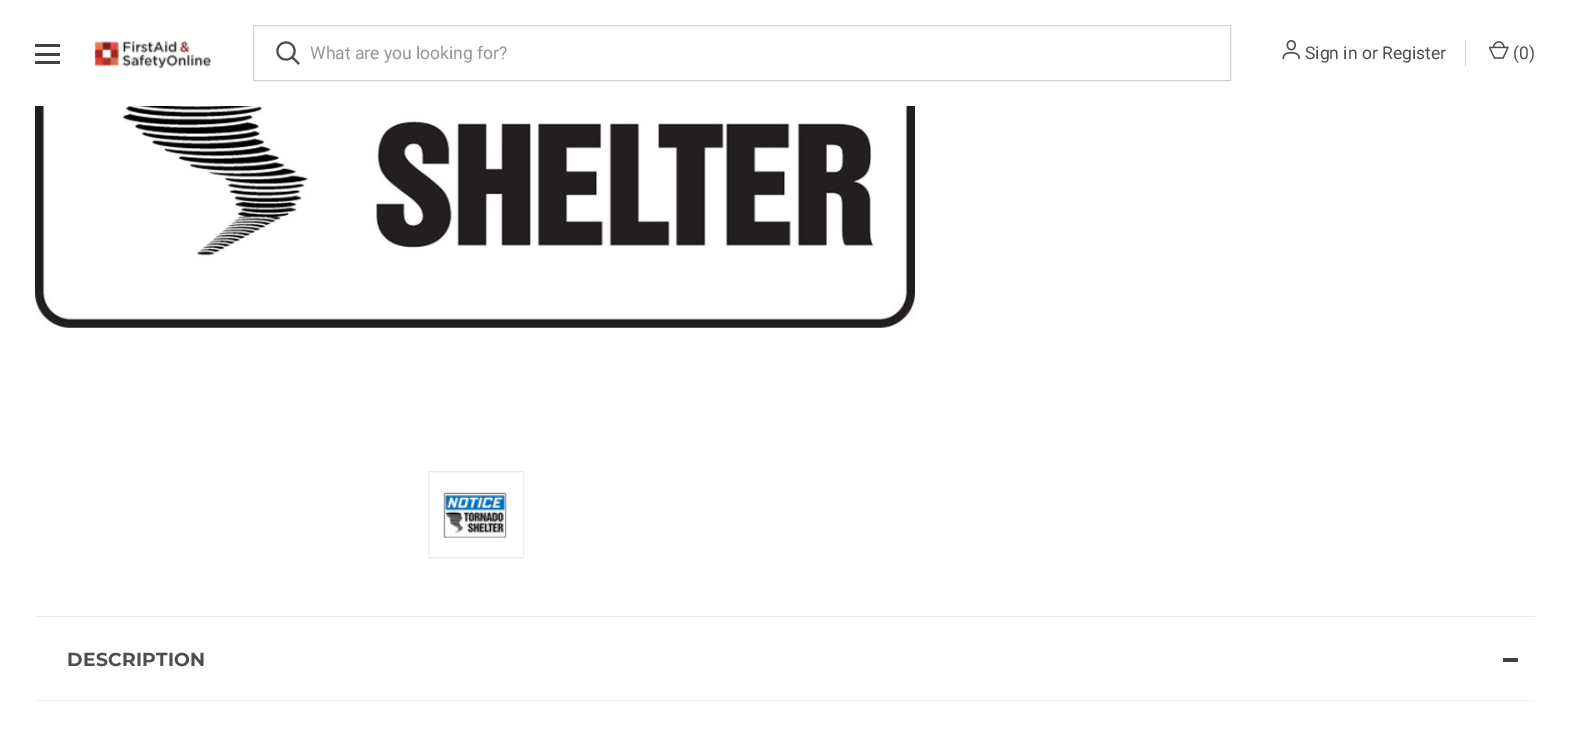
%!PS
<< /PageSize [1570 741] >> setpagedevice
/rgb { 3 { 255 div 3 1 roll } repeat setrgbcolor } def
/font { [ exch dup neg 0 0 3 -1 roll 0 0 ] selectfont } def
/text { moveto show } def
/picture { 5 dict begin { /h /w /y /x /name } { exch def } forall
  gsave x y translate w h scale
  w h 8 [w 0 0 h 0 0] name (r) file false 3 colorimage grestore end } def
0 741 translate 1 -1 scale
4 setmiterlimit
255 255 255 rgb
0 0 1570 741 rectfill
66 66 66 rgb
35 53 25 3 rectfill
35 44 25 3 rectfill
35 61 25 3 rectfill
(img_01.rgb) 94 41 118 28 picture
210 210 210 rgb
253.5 25.5 977 55 rectstroke
(img_02.rgb) 276 41 24 24 picture
(img_03.rgb) 1282 40 19 19 picture
1465 40 1 26 rectfill
(img_04.rgb) 1489 41 20 18 picture
(img_05.rgb) 35 106 880 222 picture
235 235 235 rgb
428.5 471.5 95 86 rectstroke
(img_06.rgb) 443 492 64 46 picture
35 616 1500 1 rectfill
35 700 1500 1 rectfill
66 66 66 rgb
1503 658 15 4 rectfill
/Roboto-Regular 17.5 font
150 150 150 rgb
(What are you looking for?) 310 59 text
78 78 78 rgb
(Sign in or Register) 1305 59 text
(\(0\)) 1513 59 text
/Montserrat-Bold 18.75 font
67 666 moveto 0.25 0 (DESCRIPTION) ashow
showpage
